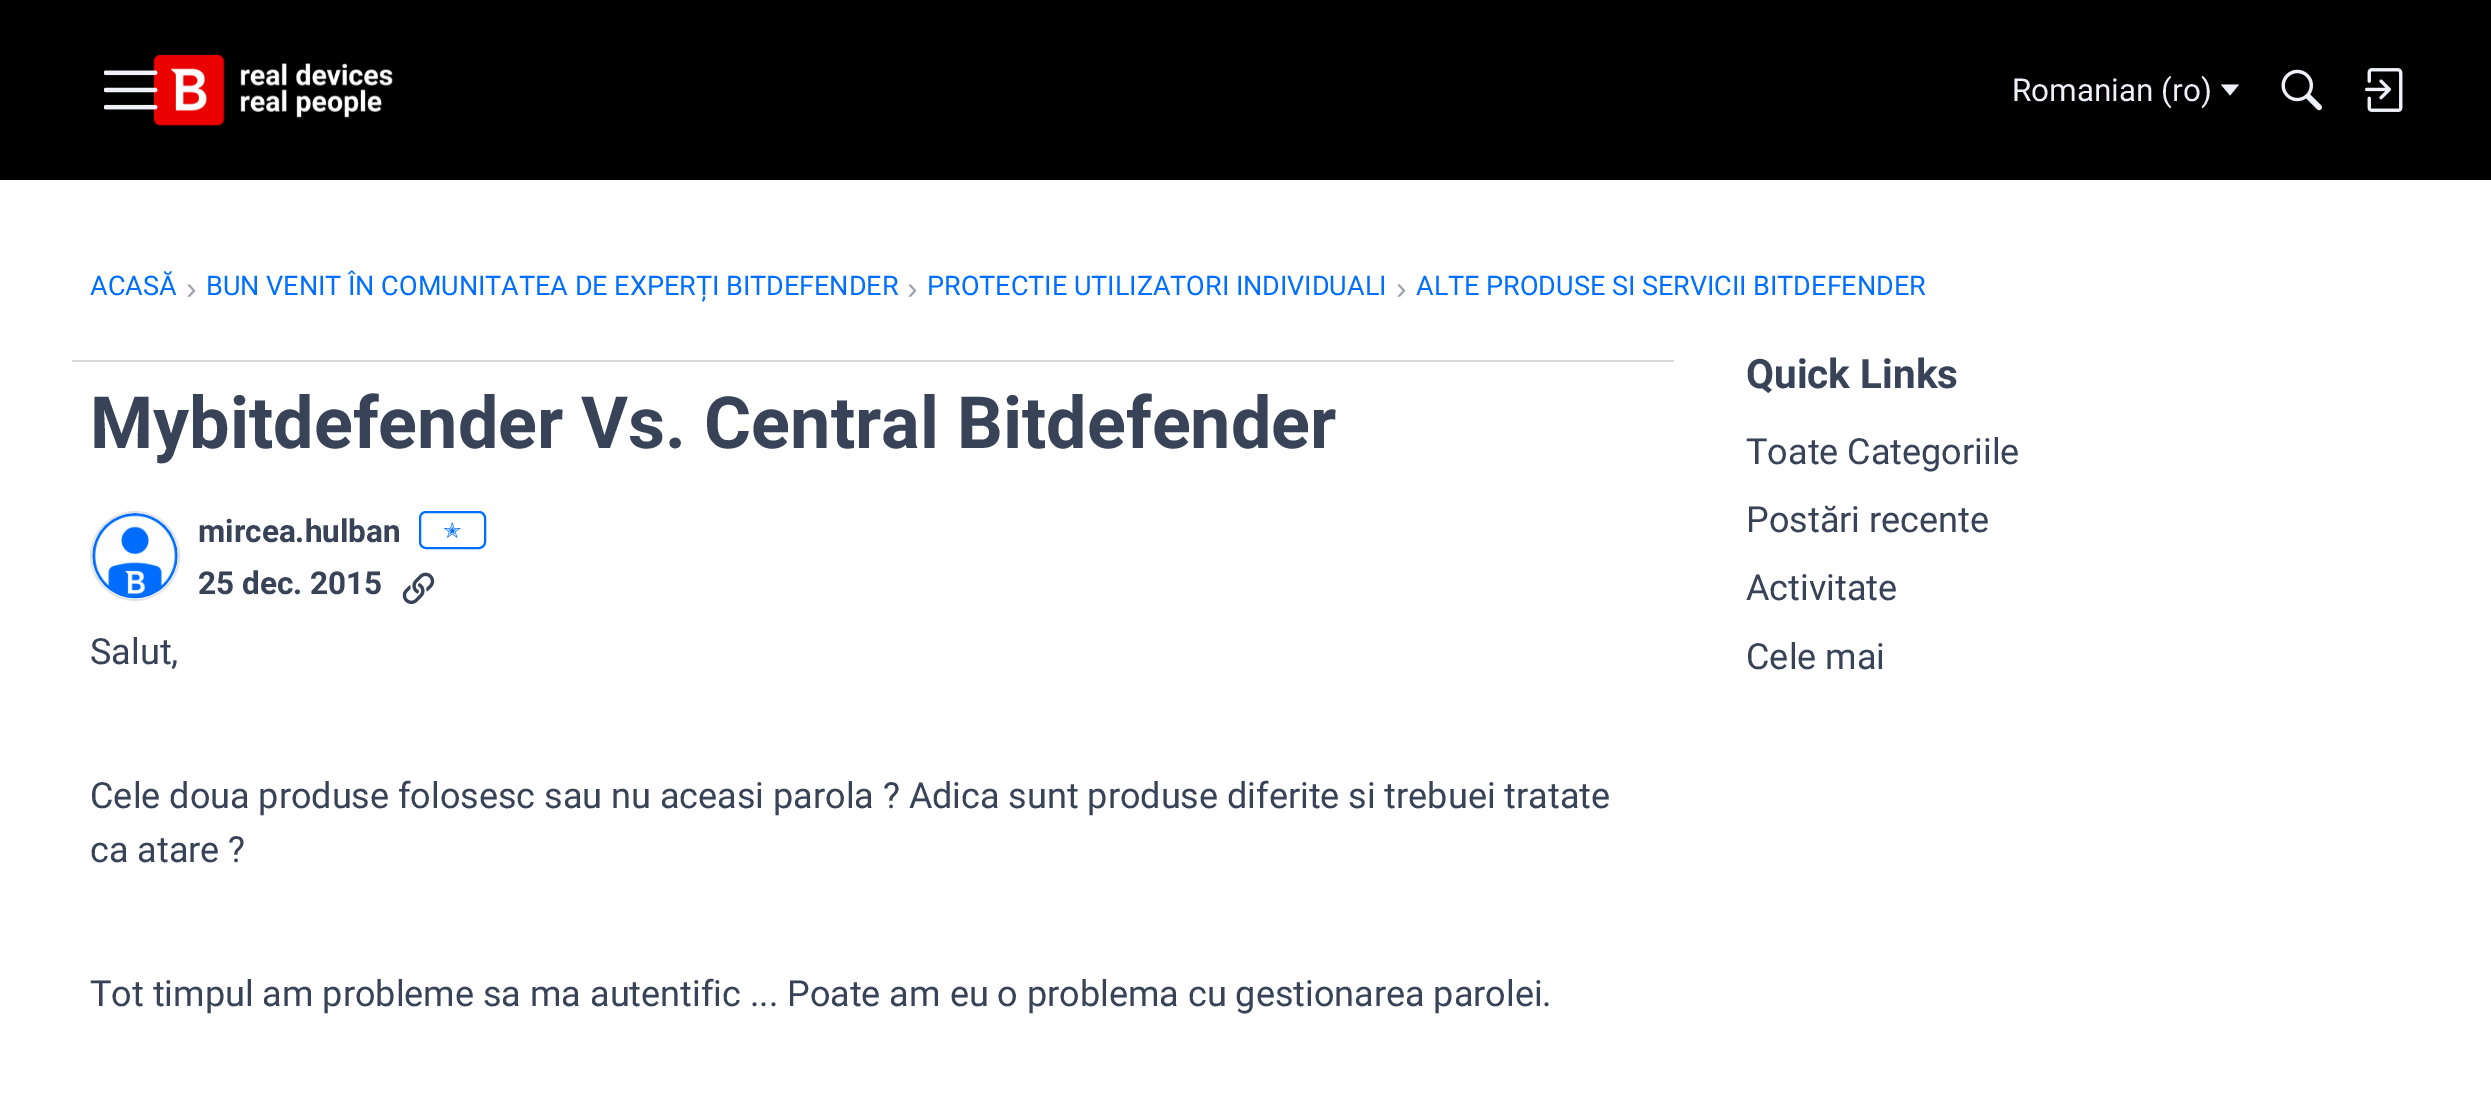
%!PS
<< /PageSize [2491 1115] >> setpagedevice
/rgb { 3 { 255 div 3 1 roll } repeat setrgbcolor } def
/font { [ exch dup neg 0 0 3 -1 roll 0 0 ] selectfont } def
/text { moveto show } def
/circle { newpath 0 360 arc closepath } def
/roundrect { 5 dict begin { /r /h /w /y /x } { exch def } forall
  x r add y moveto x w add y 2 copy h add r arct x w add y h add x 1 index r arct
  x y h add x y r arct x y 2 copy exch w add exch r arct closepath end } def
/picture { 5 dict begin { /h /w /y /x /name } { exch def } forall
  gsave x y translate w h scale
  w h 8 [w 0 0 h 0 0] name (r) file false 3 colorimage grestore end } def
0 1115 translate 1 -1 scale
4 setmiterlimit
255 255 255 rgb
0 0 2491 1115 rectfill
0 0 0 rgb
0 0 2491 180 rectfill
(img_02.rgb) 153 54 240 72 picture
(img_01.rgb) 104 70 54 40 picture
239 241 249 rgb
2221 84.5 moveto 18 0 rlineto -9 11 rlineto closepath fill
(img_03.rgb) 2281 69 41 42 picture
(img_04.rgb) 2365 68 38 44 picture
215 217 221 rgb
72 360 1602 2 rectfill
225 227 230 rgb
2 setlinewidth
135 556 44 circle stroke
(img_05.rgb) 92 513 86 86 picture
0 110 255 rgb
420 512 65 36 6 roundrect stroke
(img_06.rgb) 402 572 33 33 picture
/Roboto-Regular 31.5 font
239 241 249 rgb
(Romanian \(ro\)) 2012 101 text
/Roboto-Regular 27 font
0 110 255 rgb
(ACASĂ) 90 295 text
/LiberationSans-Regular 31.5 font
156 161 171 rgb
(›) 186 299 text
/Roboto-Regular 27 font
0 110 255 rgb
(BUN VENIT ÎN COMUNITATEA DE EXPERȚI BITDEFENDER) 206 295 text
/LiberationSans-Regular 31.5 font
156 161 171 rgb
(›) 907 299 text
/Roboto-Regular 27 font
0 110 255 rgb
(PROTECTIE UTILIZATORI INDIVIDUALI) 927 295 text
/LiberationSans-Regular 31.5 font
156 161 171 rgb
(›) 1396 299 text
/Roboto-Regular 27 font
0 110 255 rgb
(ALTE PRODUSE SI SERVICII BITDEFENDER) 1416 295 text
/Roboto-Bold 72 font
56 67 87 rgb
(Mybitdefender Vs. Central Bitdefender) 90 448 text
/Roboto-Bold 31.5 font
(mircea.hulban) 198 542 text
/DejaVuSans-Regular 22 font
0 110 255 rgb
(✭) 443 538 text
/Roboto-Bold 31.5 font
56 67 87 rgb
(25 dec. 2015) 198 594 text
/Roboto-Regular 36 font
(Salut,) 90 664 text
(Cele doua produse folosesc sau nu aceasi parola ? Adica sunt produse diferite si trebuei tratate) 90 808 text
(ca atare ?) 90 862 text
(Tot timpul am probleme sa ma autentific ... Poate am eu o problema cu gestionarea parolei.) 90 1006 text
/Roboto-Bold 40.5 font
(Quick Links) 1746 388 text
/Roboto-Regular 36 font
(Toate Categoriile) 1746 464 text
(Postări recente) 1746 532 text
(Activitate) 1746 600 text
(Cele mai) 1746 669 text
showpage
